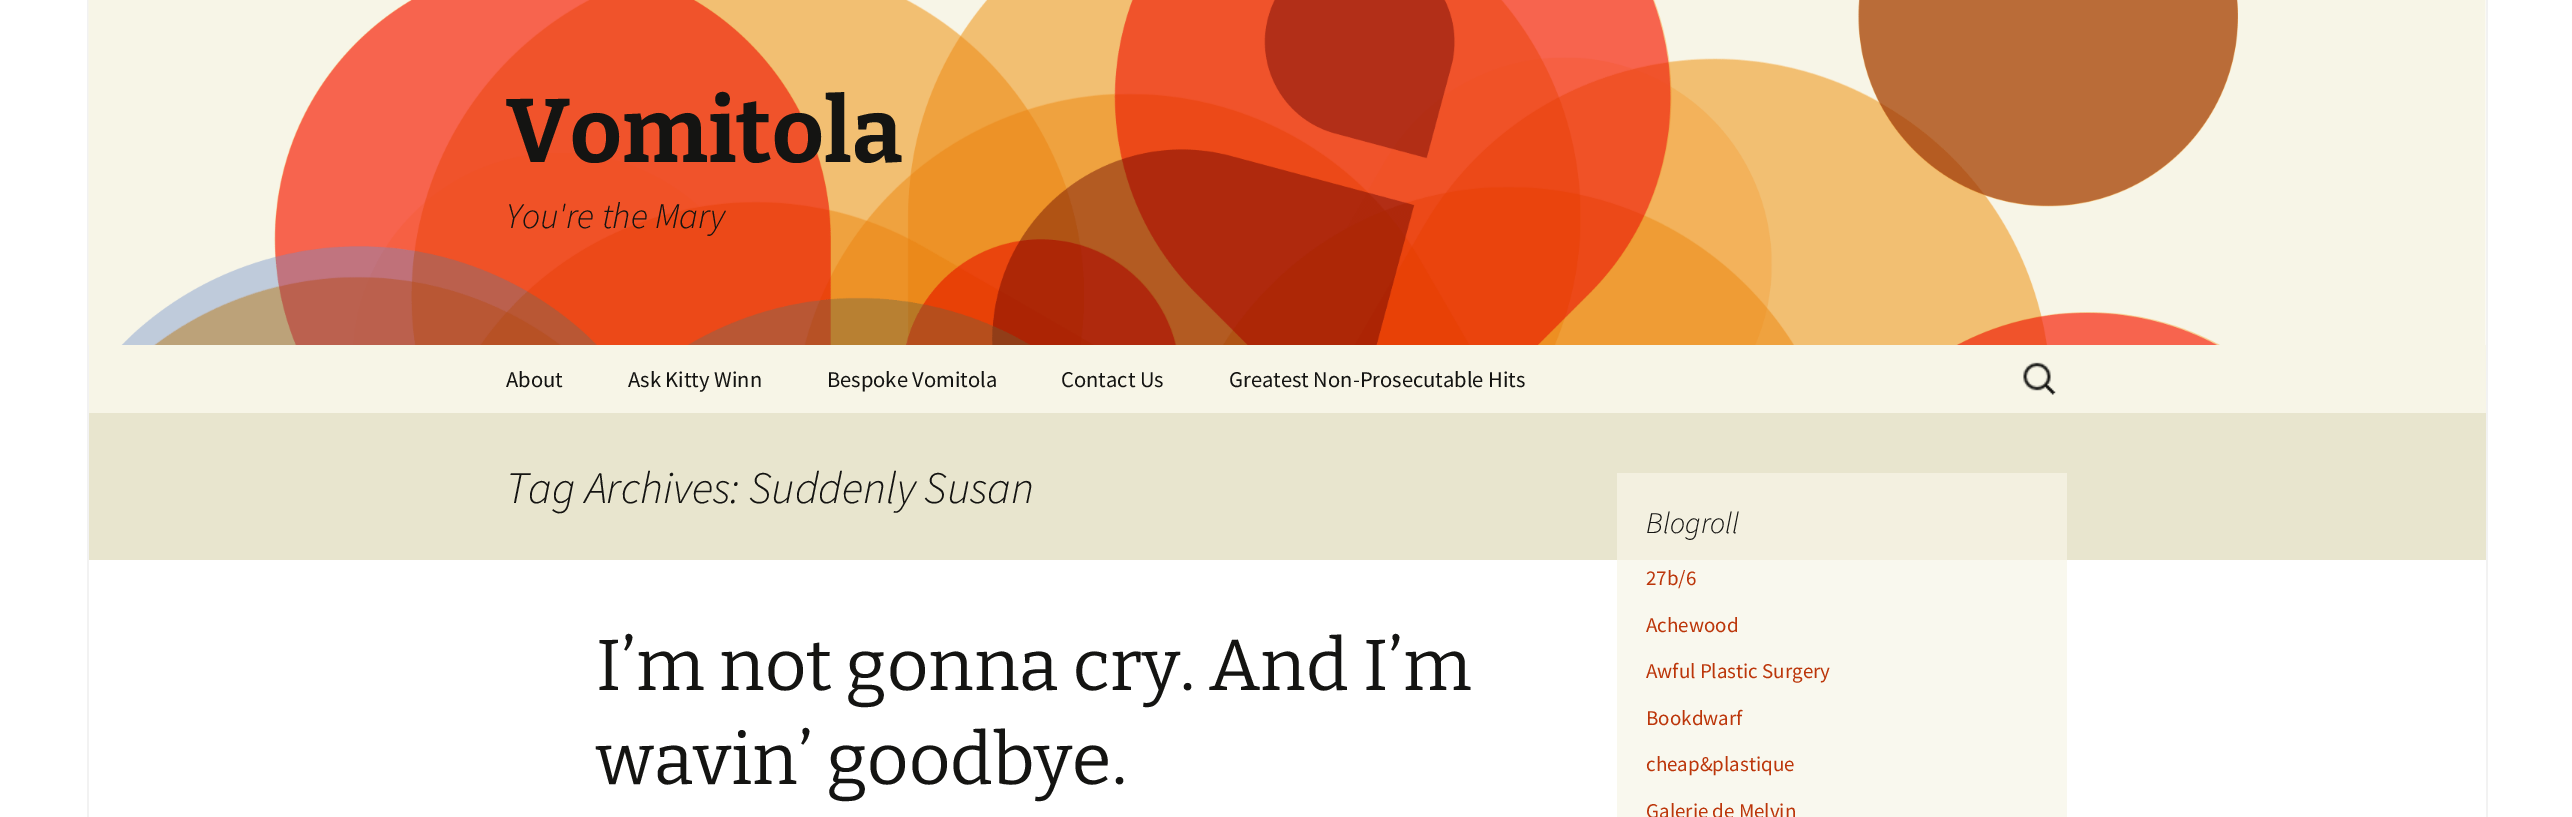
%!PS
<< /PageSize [2572 817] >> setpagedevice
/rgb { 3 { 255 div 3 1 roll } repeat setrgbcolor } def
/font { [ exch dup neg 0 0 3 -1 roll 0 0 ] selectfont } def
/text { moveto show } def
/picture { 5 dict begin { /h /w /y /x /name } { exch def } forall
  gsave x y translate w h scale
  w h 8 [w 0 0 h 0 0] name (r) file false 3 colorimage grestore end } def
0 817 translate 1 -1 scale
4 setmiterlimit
255 255 255 rgb
0 0 2572 817 rectfill
249 248 238 rgb
1617 560 450 257 rectfill
242 242 242 rgb
2486 0 2 817 rectfill
87 0 2 817 rectfill
(img_01.rgb) 88 0 2398 345 picture
247 245 231 rgb
89 345 2397 68 rectfill
(img_02.rgb) 2023 362 33 33 picture
232 229 206 rgb
89 413 2397 147 rectfill
243 240 224 rgb
1617 473 450 87 rectfill
/Bitter-Bold 90 font
20 20 18 rgb
(Vomitola) 506 162 text
/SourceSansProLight-LightItalic 36 font
(You're the Mary) 506 228 text
/SourceSansPro-Regular 22.5 font
(About) 506 387 text
(Ask Kitty Winn) 628 387 text
(Bespoke Vomitola) 827 387 text
(Contact Us) 1061 387 text
(Greatest Non-Prosecutable Hits) 1229 387 text
/SourceSansProLight-LightItalic 45 font
(Tag Archives: Suddenly Susan) 506 503 text
/Bitter-Regular 72 font
(I’m not gonna cry. And I’m) 596 690 text
(wavin’ goodbye.) 596 784 text
/SourceSansProLight-LightItalic 30 font
(Blogroll) 1646 533 text
/SourceSansPro-Regular 21 font
188 54 10 rgb
(27b/6) 1646 585 text
(Achewood) 1646 632 text
(Awful Plastic Surgery) 1646 678 text
(Bookdwarf) 1646 725 text
(cheap&plastique) 1646 771 text
(Galerie de Melvin) 1646 818 text
showpage
